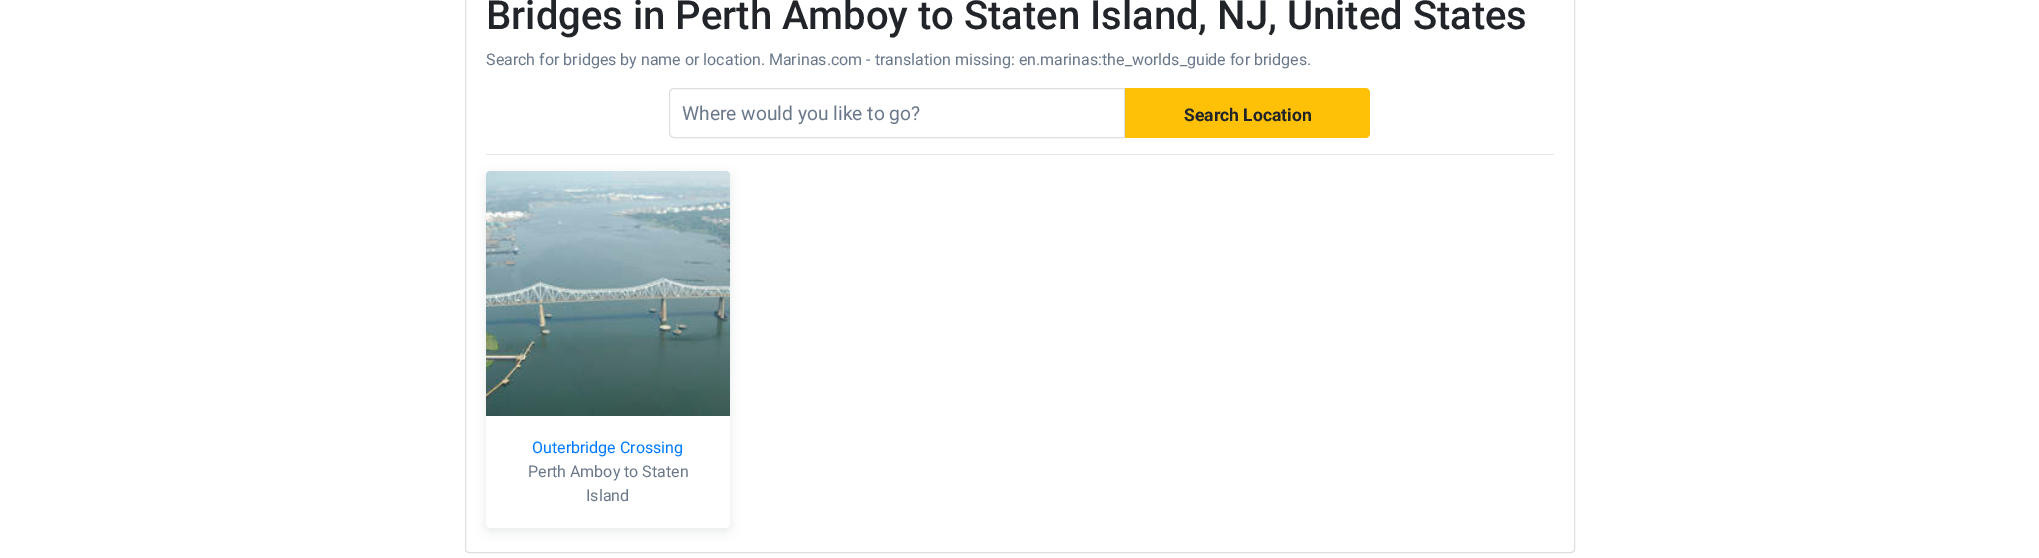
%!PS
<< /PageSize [2039 558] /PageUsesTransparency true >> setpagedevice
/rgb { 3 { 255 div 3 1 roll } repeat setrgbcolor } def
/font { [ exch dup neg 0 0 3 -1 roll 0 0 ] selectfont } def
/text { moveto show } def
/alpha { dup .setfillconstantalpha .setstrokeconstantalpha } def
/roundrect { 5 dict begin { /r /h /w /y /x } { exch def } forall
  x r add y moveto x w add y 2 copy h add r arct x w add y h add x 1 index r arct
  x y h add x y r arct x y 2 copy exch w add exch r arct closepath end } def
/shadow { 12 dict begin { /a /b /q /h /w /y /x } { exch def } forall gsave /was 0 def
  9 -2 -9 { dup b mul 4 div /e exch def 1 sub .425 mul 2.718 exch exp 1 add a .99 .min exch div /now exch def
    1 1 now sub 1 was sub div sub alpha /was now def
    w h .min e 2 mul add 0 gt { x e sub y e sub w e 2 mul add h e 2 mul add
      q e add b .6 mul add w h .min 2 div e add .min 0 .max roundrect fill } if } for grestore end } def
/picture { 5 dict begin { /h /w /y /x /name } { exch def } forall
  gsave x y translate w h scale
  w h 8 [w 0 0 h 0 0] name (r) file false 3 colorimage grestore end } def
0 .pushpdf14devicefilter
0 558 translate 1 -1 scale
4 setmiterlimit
255 255 255 rgb
0 0 2039 558 rectfill
223 223 223 rgb
465.5 -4.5 1109 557 3.5 roundrect stroke
674 88.5 moveto 450.5 0 rlineto 0 49 rlineto -450.5 0 rlineto -2.5 0 -4.5 -2 -4.5 -4.5 rcurveto 0 -40 rlineto 0 -2.5 2 -4.5 4.5 -4.5 rcurveto closepath stroke
255 193 7 rgb
1125 88 moveto 240 0 rlineto 3 0 5 2 5 5 rcurveto 0 40 rlineto 0 3 -2 5 -5 5 rcurveto -240 0 rlineto closepath fill
230 230 230 rgb
486 154 1068 1 rectfill
205 210 214 rgb
486 174 244 357 4 5 0.5 shadow
255 255 255 rgb
486 171 244 357 4 roundrect fill
(img_01.rgb) 486 171 244 245 picture
/Roboto-Medium 40 font
33 37 41 rgb
(Bridges in Perth Amboy to Staten Island, NJ, United States) 486 29 text
/Roboto-Regular 16 font
106 120 138 rgb
(Search for bridges by name or location. Marinas.com - translation missing: en.marinas:the_worlds_guide for bridges.) 486 65 text
/Roboto-Regular 19.25 font
(Where would you like to go?) 682 120 text
/Roboto-Bold 17.5 font
33 37 41 rgb
(Search Location) 1184 121 text
/Roboto-Regular 16 font
0 123 255 rgb
(Outerbridge Crossing) 532 453 text
106 120 138 rgb
(Perth Amboy to Staten) 528 477 text
(Island) 586 501 text
.poppdf14devicefilter showpage
